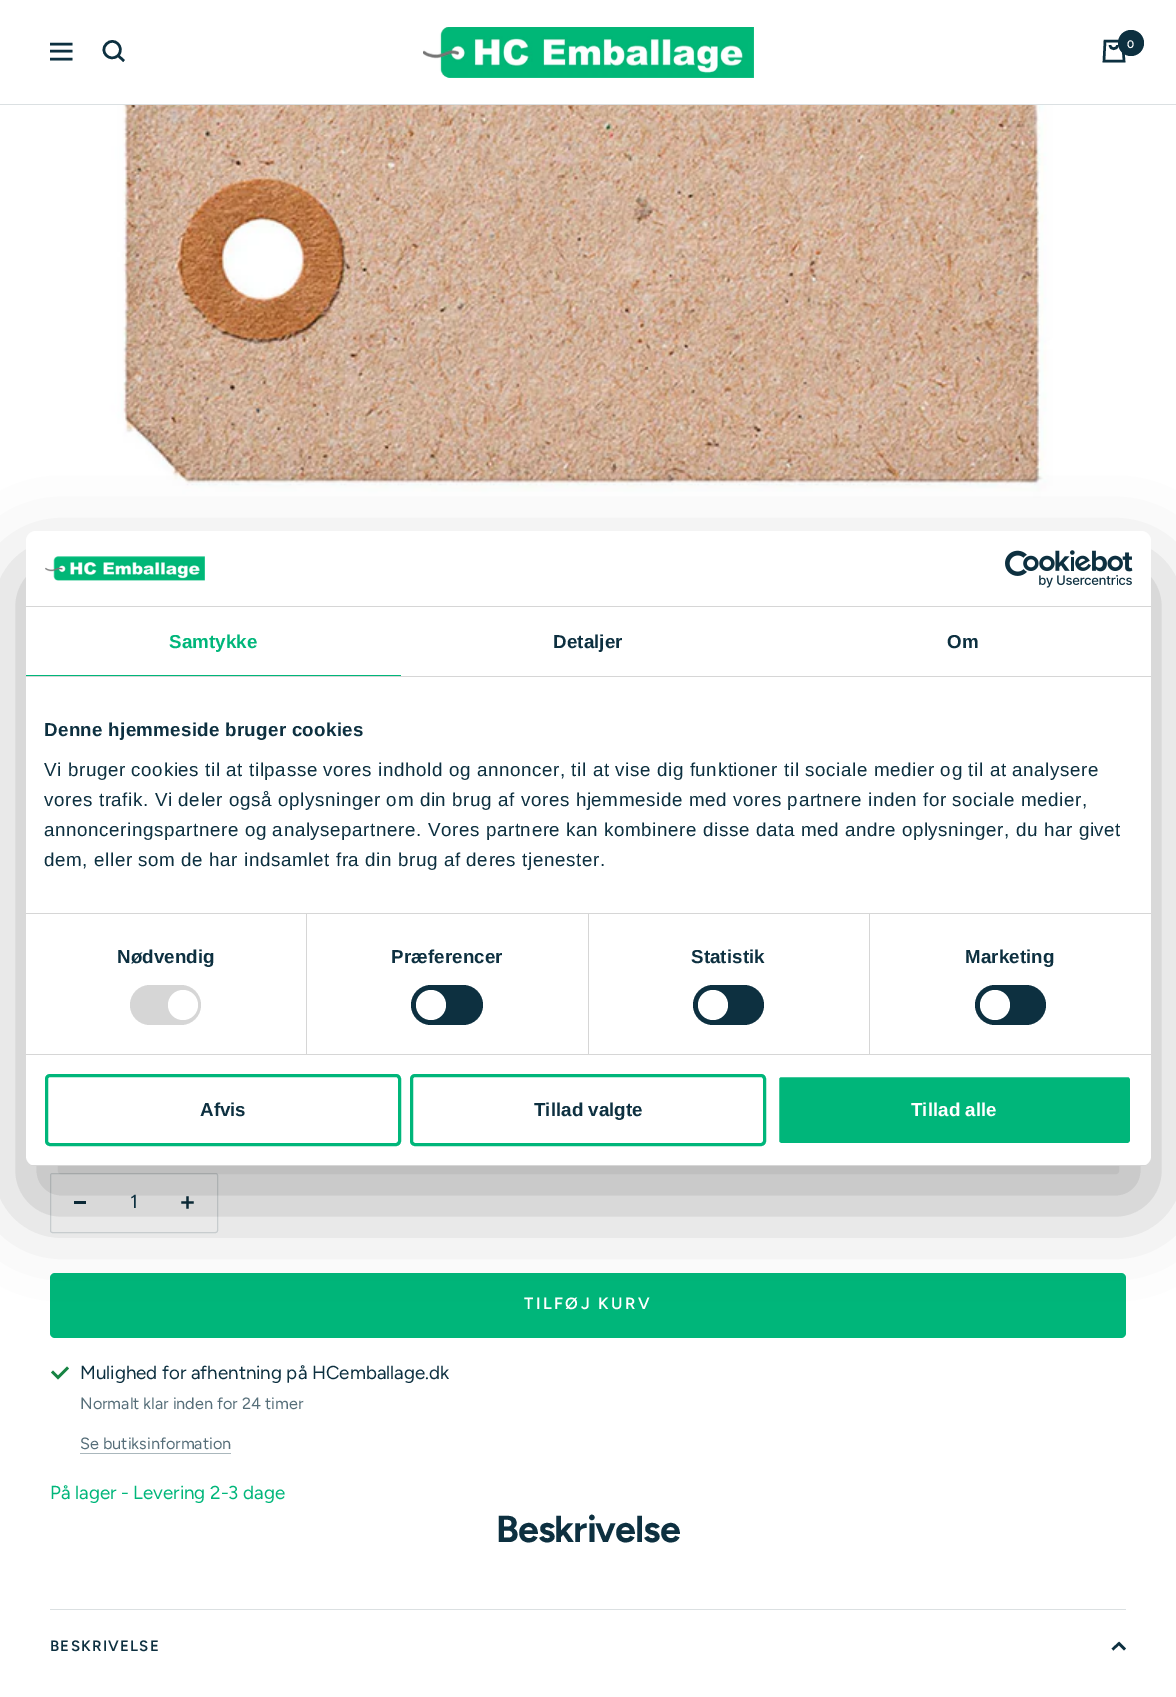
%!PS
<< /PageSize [1176 1697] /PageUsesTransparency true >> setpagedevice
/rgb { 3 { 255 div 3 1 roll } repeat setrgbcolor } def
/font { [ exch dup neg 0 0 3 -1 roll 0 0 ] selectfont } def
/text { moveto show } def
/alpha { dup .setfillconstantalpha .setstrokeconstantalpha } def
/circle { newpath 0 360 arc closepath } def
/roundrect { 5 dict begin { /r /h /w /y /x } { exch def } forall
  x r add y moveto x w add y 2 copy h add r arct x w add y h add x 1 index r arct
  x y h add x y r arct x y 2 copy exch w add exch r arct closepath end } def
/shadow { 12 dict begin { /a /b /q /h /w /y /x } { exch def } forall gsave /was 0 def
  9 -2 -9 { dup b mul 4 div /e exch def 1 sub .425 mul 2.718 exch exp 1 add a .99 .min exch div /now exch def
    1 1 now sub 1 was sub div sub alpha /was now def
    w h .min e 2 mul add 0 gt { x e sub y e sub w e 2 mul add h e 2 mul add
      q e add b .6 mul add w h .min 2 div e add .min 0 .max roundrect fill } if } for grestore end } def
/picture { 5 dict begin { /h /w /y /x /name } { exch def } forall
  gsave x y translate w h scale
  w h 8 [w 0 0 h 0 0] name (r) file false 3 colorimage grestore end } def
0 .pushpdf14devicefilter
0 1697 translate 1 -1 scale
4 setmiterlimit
255 255 255 rgb
0 0 1176 1697 rectfill
219 224 226 rgb
0 104 1176 1 rectfill
13 48 64 rgb
2.5 setlinewidth
50 44 moveto 22.5 0 rlineto 50 59 moveto 22.5 0 rlineto closepath 50 51 moveto 22.5 0 rlineto closepath stroke
118 55.5 moveto 7.5 -8 -4 -19.5 -11.5 -11.5 rcurveto -8 7.5 3.5 19 11.5 11.5 rcurveto closepath 118 55.5 moveto 6 5.5 rlineto stroke
(img_01.rgb) 423 27 331 51 picture
1105 41 moveto 17.5 0 rlineto 1.5 20 rlineto -20 0 rlineto closepath 1110 45 moveto 0 5 7.5 5 7.5 0 rcurveto stroke
1131 43 13 circle fill
(img_04.rgb) 50 105 1076 426 picture
219 224 226 rgb
1 setlinewidth
50.5 1173.5 167 59 2 roundrect stroke
13 48 64 rgb
74 1201 12 3 rectfill
(img_05.rgb) 181 1196 13 13 picture
0 182 122 rgb
50 1273 1076 65 5 roundrect fill
0 0 0 rgb
26 571 1125 635 10 42.5 0.3 shadow
255 255 255 rgb
26 531 1125 635 10 roundrect fill
214 214 214 rgb
26 606 1125 1 rectfill
(img_02.rgb) 45 556 160 25 picture
(img_03.rgb) 1005 550 128 38 picture
26 676 1125 1 rectfill
0 182 122 rgb
26 675 375 1 rectfill
214 214 214 rgb
26 913 1125 1 rectfill
26 1054 1125 1 rectfill
306 914 1 140 rectfill
130 985 71 40 20 roundrect fill
255 255 255 rgb
183 1005 15 circle fill
214 214 214 rgb
588 914 1 140 rectfill
13 48 64 rgb
411 985 72 40 20 roundrect fill
255 255 255 rgb
431 1005 15 circle fill
214 214 214 rgb
869 914 1 140 rectfill
13 48 64 rgb
693 985 71 40 20 roundrect fill
255 255 255 rgb
713 1005 15 circle fill
13 48 64 rgb
975 985 71 40 20 roundrect fill
255 255 255 rgb
995 1005 15 circle fill
gsave
26 531 1125 635 10 roundrect clip newpath
214 214 214 rgb
26 1165 1125 1 rectfill
grestore
0 182 122 rgb
3 setlinewidth
46.5 1075.5 353 69 3.5 roundrect stroke
411.5 1075.5 353 69 3.5 roundrect stroke
777.5 1075.5 354 69 3.5 roundrect gsave fill grestore
255 255 255 rgb
stroke
22 131 66 rgb
2.5 setlinewidth
52 1371.5 moveto 6 6 rlineto 10 -10 rlineto stroke
170 183 188 rgb
80 1453 151 1 rectfill
219 224 226 rgb
50 1609 1076 1 rectfill
13 48 64 rgb
1125 1649.5 moveto -6 -6 rlineto -6.5 6 rlineto stroke
/Figtree-SemiBold 11 font
255 255 255 rgb
(0) 1127 48 text
/LiberationSans-Bold 18.75 font
0 182 122 rgb
169 648 moveto 0.1 0 (Samtykke) ashow
13 48 64 rgb
553 648 moveto 0.1 0 (Detaljer) ashow
947 648 moveto 0.1 0 (Om) ashow
44 736 moveto 0.3 0 (Denne hjemmeside bruger cookies) ashow
/LiberationSans-Regular 18.75 font
44 776 moveto 0.62 0 (Vi bruger cookies til at tilpasse vores indhold og annoncer, til at vise dig funktioner til sociale medier og til at analysere) ashow
44 806 moveto 0.62 0 (vores trafik. Vi deler også oplysninger om din brug af vores hjemmeside med vores partnere inden for sociale medier,) ashow
44 836 moveto 0.62 0 (annonceringspartnere og analysepartnere. Vores partnere kan kombinere disse data med andre oplysninger, du har givet) ashow
44 866 moveto 0.62 0 (dem, eller som de har indsamlet fra din brug af deres tjenester.) ashow
/LiberationSans-Bold 18.75 font
117 963 moveto 0.1 0 (Nødvendig) ashow
391 963 moveto 0.1 0 (Præferencer) ashow
691 963 moveto 0.1 0 (Statistik) ashow
965 963 moveto 0.1 0 (Marketing) ashow
(Afvis) 200 1116 text
(Tillad valgte) 534 1116 text
255 255 255 rgb
(Tillad alle) 911 1116 text
/Figtree-Regular 18.75 font
13 48 64 rgb
(1) 130 1208 text
/Figtree-SemiBold 16.25 font
255 255 255 rgb
524 1309 moveto 2.5 0 (TILFØJ KURV) ashow
/Figtree-Regular 18.75 font
13 48 64 rgb
(Mulighed for afhentning på HCemballage.dk) 80 1379 text
/Figtree-Regular 16.25 font
86 110 121 rgb
(Normalt klar inden for 24 timer) 80 1409 text
(Se butiksinformation) 80 1449 text
/Figtree-Regular 18.75 font
0 182 122 rgb
(På lager - Levering 2-3 dage) 50 1499 text
/Figtree-Bold 37.5 font
13 48 64 rgb
496 1542 moveto -1 0 (Beskrivelse) ashow
/Figtree-SemiBold 15 font
50 1651 moveto 1.25 0 (BESKRIVELSE) ashow
.poppdf14devicefilter showpage
